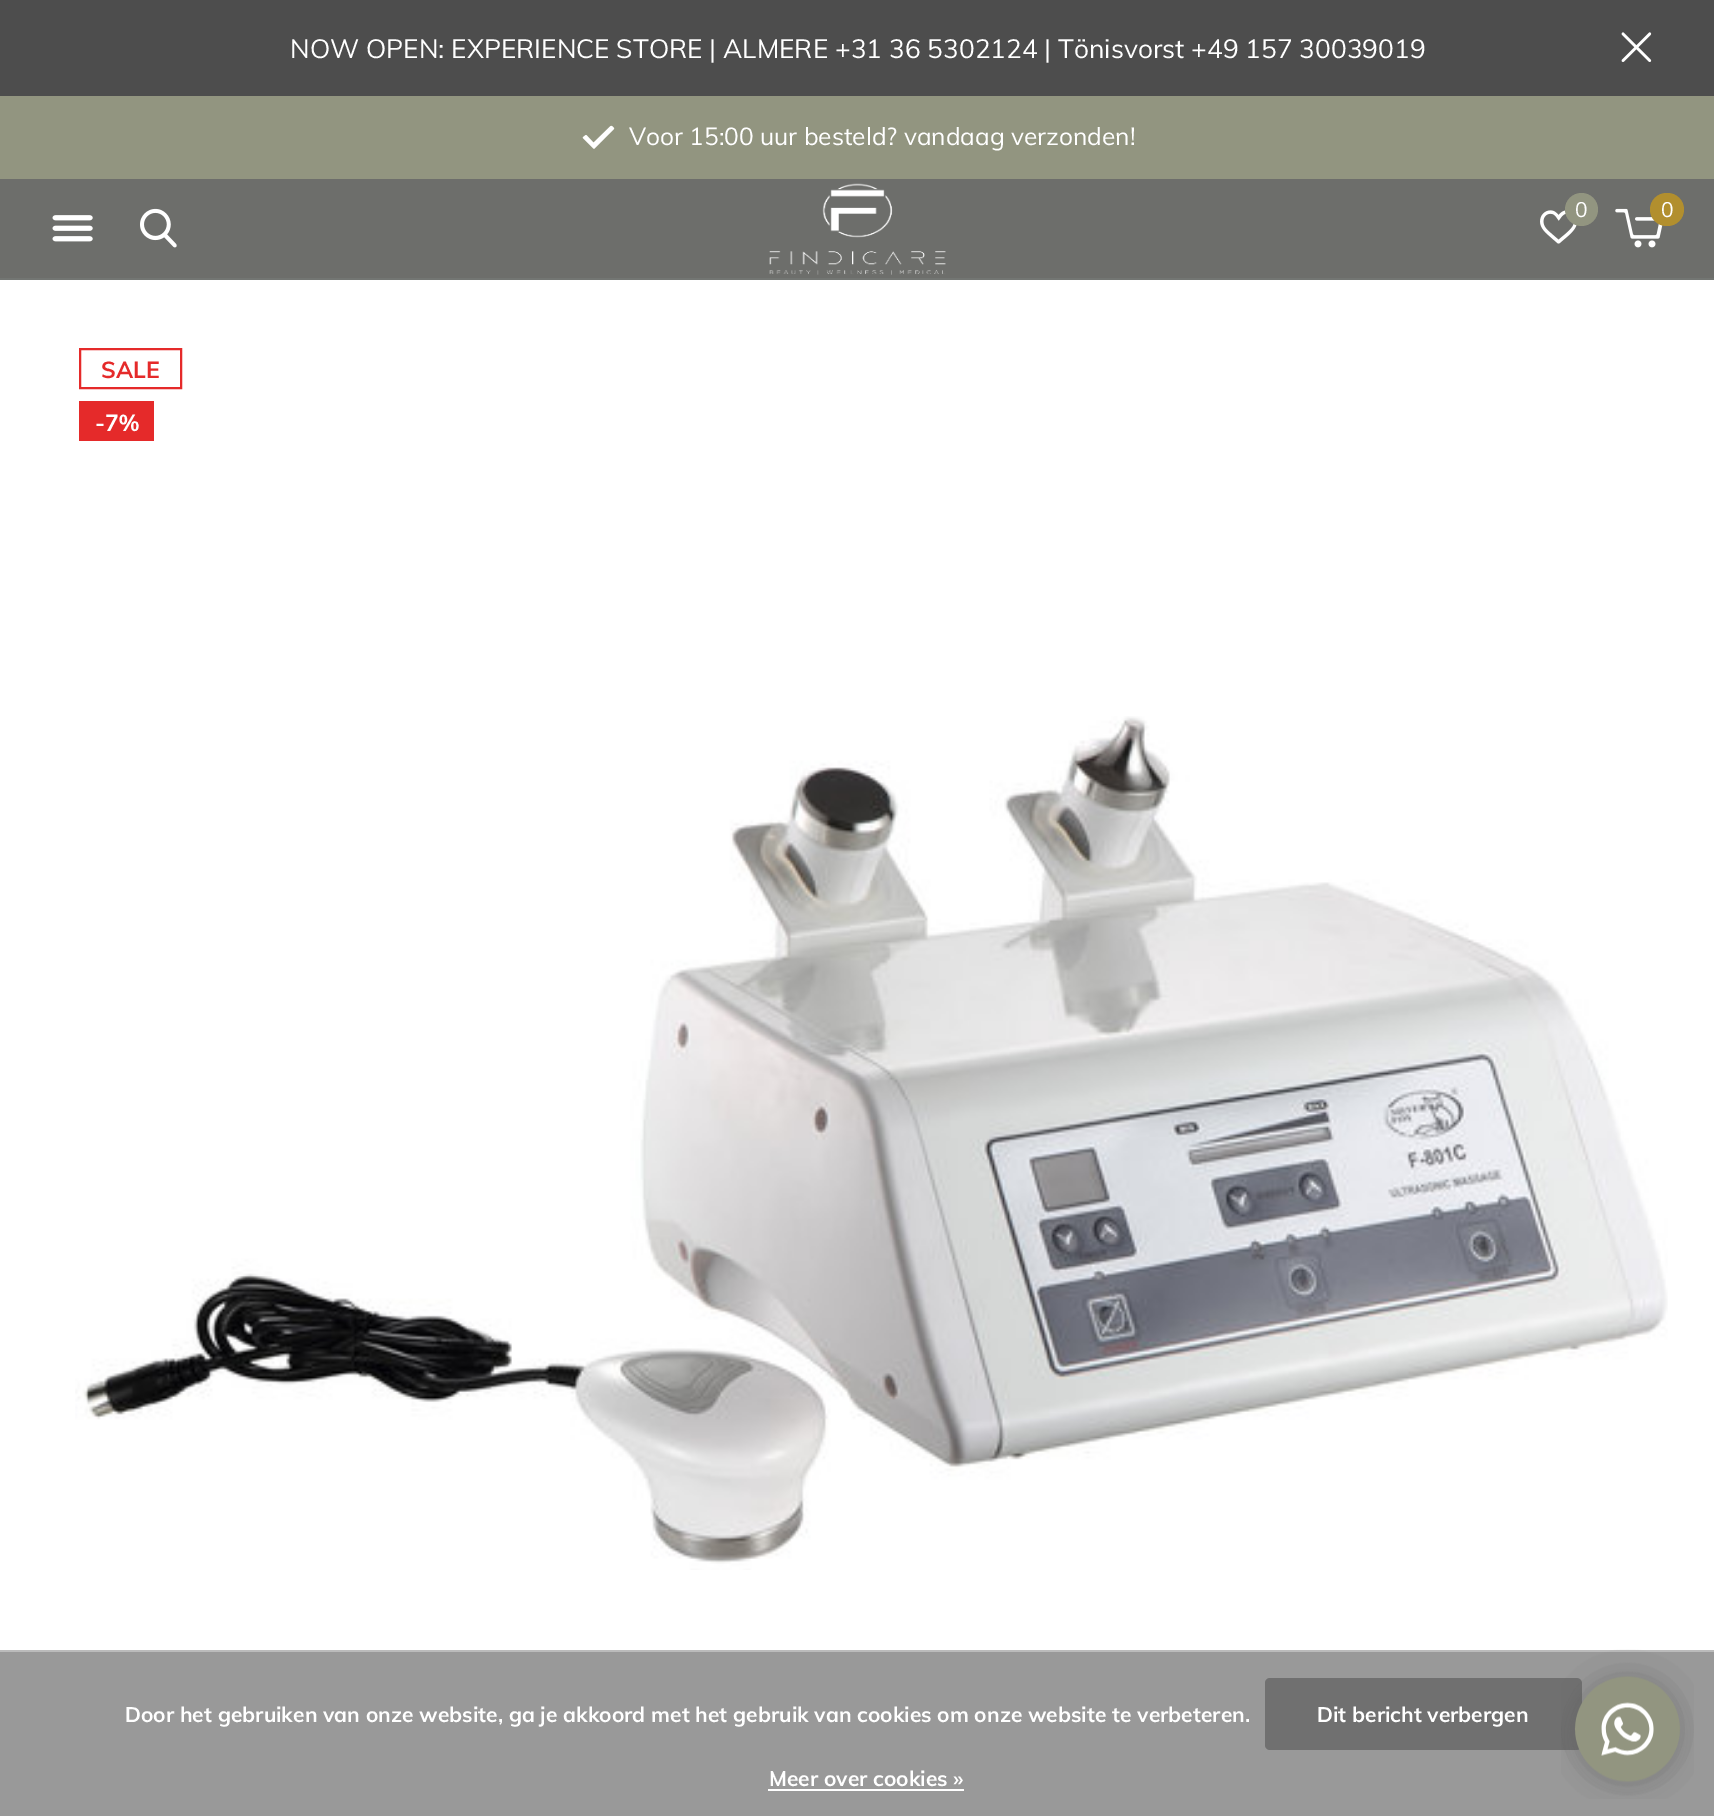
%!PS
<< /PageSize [1714 1816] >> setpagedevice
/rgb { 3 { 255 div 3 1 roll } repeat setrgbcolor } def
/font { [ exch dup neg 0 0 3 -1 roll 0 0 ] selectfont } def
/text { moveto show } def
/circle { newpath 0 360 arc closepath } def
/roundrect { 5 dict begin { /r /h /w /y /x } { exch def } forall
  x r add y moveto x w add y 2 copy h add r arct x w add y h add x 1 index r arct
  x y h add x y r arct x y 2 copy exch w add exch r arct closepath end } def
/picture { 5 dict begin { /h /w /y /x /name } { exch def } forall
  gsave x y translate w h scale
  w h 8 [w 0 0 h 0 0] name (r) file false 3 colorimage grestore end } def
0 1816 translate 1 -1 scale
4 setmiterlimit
255 255 255 rgb
0 0 1714 1816 rectfill
77 77 77 rgb
0 0 1714 96 rectfill
(img_01.rgb) 1621 32 31 30 picture
146 149 128 rgb
0 96 1714 83 rectfill
(img_02.rgb) 582 125 33 24 picture
109 110 107 rgb
0 179 1714 99 rectfill
115 118 115 rgb
0 278 1714 2 rectfill
(img_03.rgb) 769 183 177 92 picture
(img_04.rgb) 140 208 37 40 picture
(img_05.rgb) 1540 210 37 34 picture
146 149 128 rgb
1581.5 209.5 16.5 circle fill
(img_06.rgb) 1615 208 48 40 picture
178 143 46 rgb
1650 193 34 33 16.5 roundrect fill
(img_07.rgb) 52 215 41 27 picture
229 42 42 rgb
2 setlinewidth
80 349 101 39 rectstroke
79 401 75 40 rectfill
(img_08.rgb) 75 716 1593 854 picture
153 153 153 rgb
0 1652 1714 164 rectfill
187 187 187 rgb
0 1650 1714 2 rectfill
112 112 112 rgb
1265 1678 317 72 5 roundrect fill
255 255 255 rgb
768 1789 196 2 rectfill
(img_09.rgb) 1561 1649 133 150 picture
/Muli-Regular 26.25 font
(NOW OPEN: EXPERIENCE STORE | ALMERE +31 36 5302124 | Tönisvorst +49 157 30039019) 290 58 text
/Muli-Regular 24.5 font
(Voor 15:00 uur besteld? vandaag verzonden!) 629 145 text
/Muli-Regular 21 font
(0) 1575 217 text
(0) 1661 217 text
/Muli-Bold 23 font
229 42 42 rgb
(SALE) 101 378 text
255 255 255 rgb
(-7%) 95 431 text
/Muli-Bold 21 font
(Door het gebruiken van onze website, ga je akkoord met het gebruik van cookies om onze website te verbeteren.) 125 1722 text
(Dit bericht verbergen) 1317 1722 text
(Meer over cookies ») 769 1786 text
showpage
